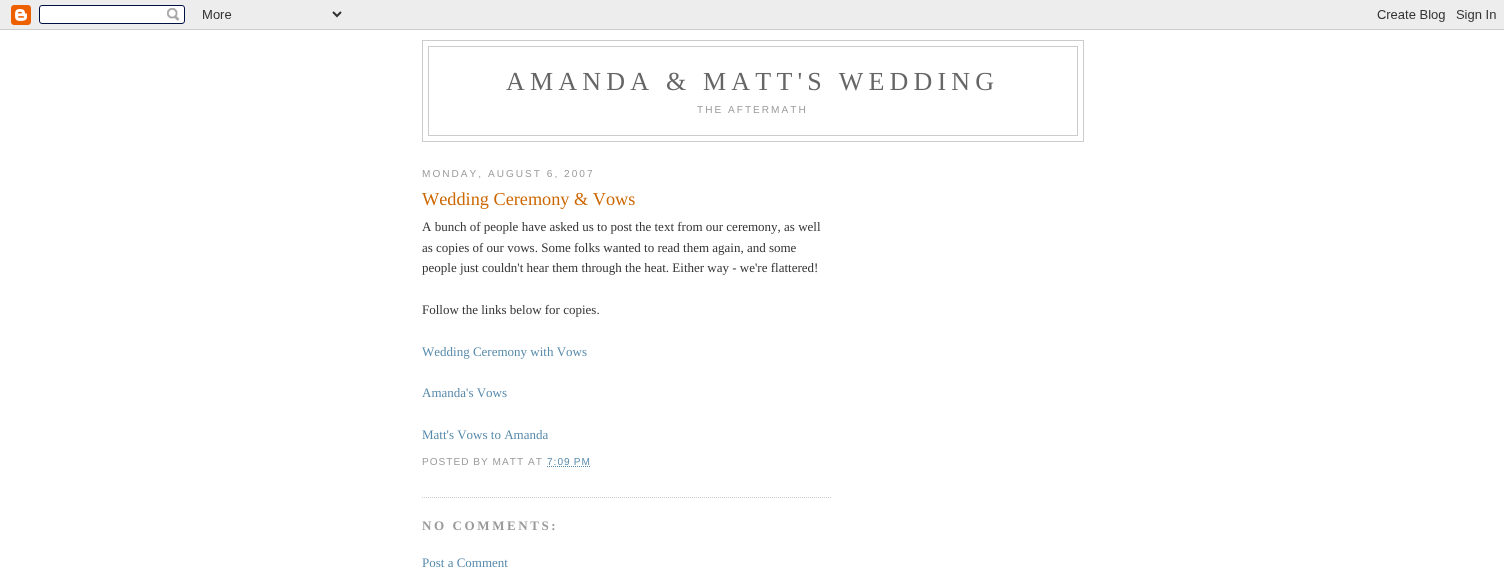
#include <cairo.h>
#include <math.h>
#include <stddef.h>

static cairo_t *c;
static void C(unsigned color){cairo_set_source_rgb(c, (color >> 16) / 255.0, (color >> 8 & 255) / 255.0, (color & 255) / 255.0);}
static void F(const char *family, double size, int italic, int bold){cairo_select_font_face(c, family, italic ? CAIRO_FONT_SLANT_ITALIC : CAIRO_FONT_SLANT_NORMAL,bold ? CAIRO_FONT_WEIGHT_BOLD : CAIRO_FONT_WEIGHT_NORMAL);cairo_set_font_size(c, size);}
static void T(double x, double y, const char *s){cairo_move_to(c, x, y);cairo_show_text(c, s);}
static void L(double x, double y, const char *s, double letter, double word){cairo_move_to(c, x, y);while (*s) {char ch[5] = {0};int n = 0;do ch[n++] = *s++; while ((*s & 0xC0) == 0x80);cairo_show_text(c, ch);cairo_rel_move_to(c, letter + word * (*ch == ' '), 0);}}
static void I(const char *path, double x, double y, double w, double h){cairo_surface_t *image = cairo_image_surface_create_from_png(path);cairo_save(c);cairo_set_source_surface(c, image, x, y);cairo_rectangle(c, x, y, w, h);cairo_fill(c);cairo_restore(c);cairo_surface_destroy(image);}
int main(void) {
cairo_surface_t *surface = cairo_image_surface_create(CAIRO_FORMAT_RGB24, 1504, 567);
c = cairo_create(surface);
cairo_font_options_t *options = cairo_font_options_create();
cairo_font_options_set_hint_metrics(options, CAIRO_HINT_METRICS_OFF);
cairo_font_options_set_hint_style(options, CAIRO_HINT_STYLE_NONE);
cairo_set_font_options(c, options);
cairo_set_miter_limit(c, 4);
C(0xffffff);
cairo_paint(c);
I("1.png",0,0,1504,30);
cairo_rectangle(c,422.5,40.5,661,101);
C(0xcccccc);
cairo_set_line_width(c,1);
cairo_stroke(c);
cairo_rectangle(c,428.5,46.5,649,89);
cairo_stroke(c);
F("Liberation Serif",26,0,0);
C(0x666666);
L(506,90,"AMANDA & MATT'S WEDDING",5.2,0);
F("Liberation Sans",10.1,0,0);
C(0x999999);
L(697,113,"THE AFTERMATH",2,0);
L(422,177,"MONDAY, AUGUST 6, 2007",2,0);
cairo_new_path(c);
cairo_move_to(c,422,497.5);
cairo_line_to(c,832,497.5);
C(0xcccccc);
cairo_set_dash(c,(double[]){1,1},2,0);
cairo_stroke(c);
F("Liberation Serif",18.25,0,0);
C(0xcc6600);
T(422,205,"Wedding Ceremony & Vows");
F("Liberation Serif",13,0,0);
C(0x333333);
T(422,231,"A bunch of people have asked us to post the text from our ceremony, as well");
T(422,252,"as copies of our vows. Some folks wanted to read them again, and some");
T(422,272,"people just couldn't hear them through the heat. Either way - we're flattered!");
T(422,314,"Follow the links below for copies.");
C(0x5588aa);
T(422,356,"Wedding Ceremony with Vows");
T(422,397,"Amanda's Vows");
T(422,439,"Matt's Vows to Amanda");
F("Liberation Sans",10.1,0,0);
C(0x999999);
L(422,465,"POSTED BY MATT AT",1,0);
C(0x5588aa);
L(547,465,"7:09 PM",1,0);
cairo_new_path(c);
cairo_move_to(c,547,466.5);
cairo_line_to(c,591,466.5);
cairo_stroke(c);
F("Liberation Serif",13,0,1);
C(0x999999);
L(422,530,"NO COMMENTS:",2.6,0);
F("Liberation Serif",13,0,0);
C(0x5588aa);
T(422,567,"Post a Comment");
cairo_surface_write_to_png(surface, "o.png");
cairo_font_options_destroy(options);
cairo_destroy(c);
cairo_surface_destroy(surface);
return 0;
}
